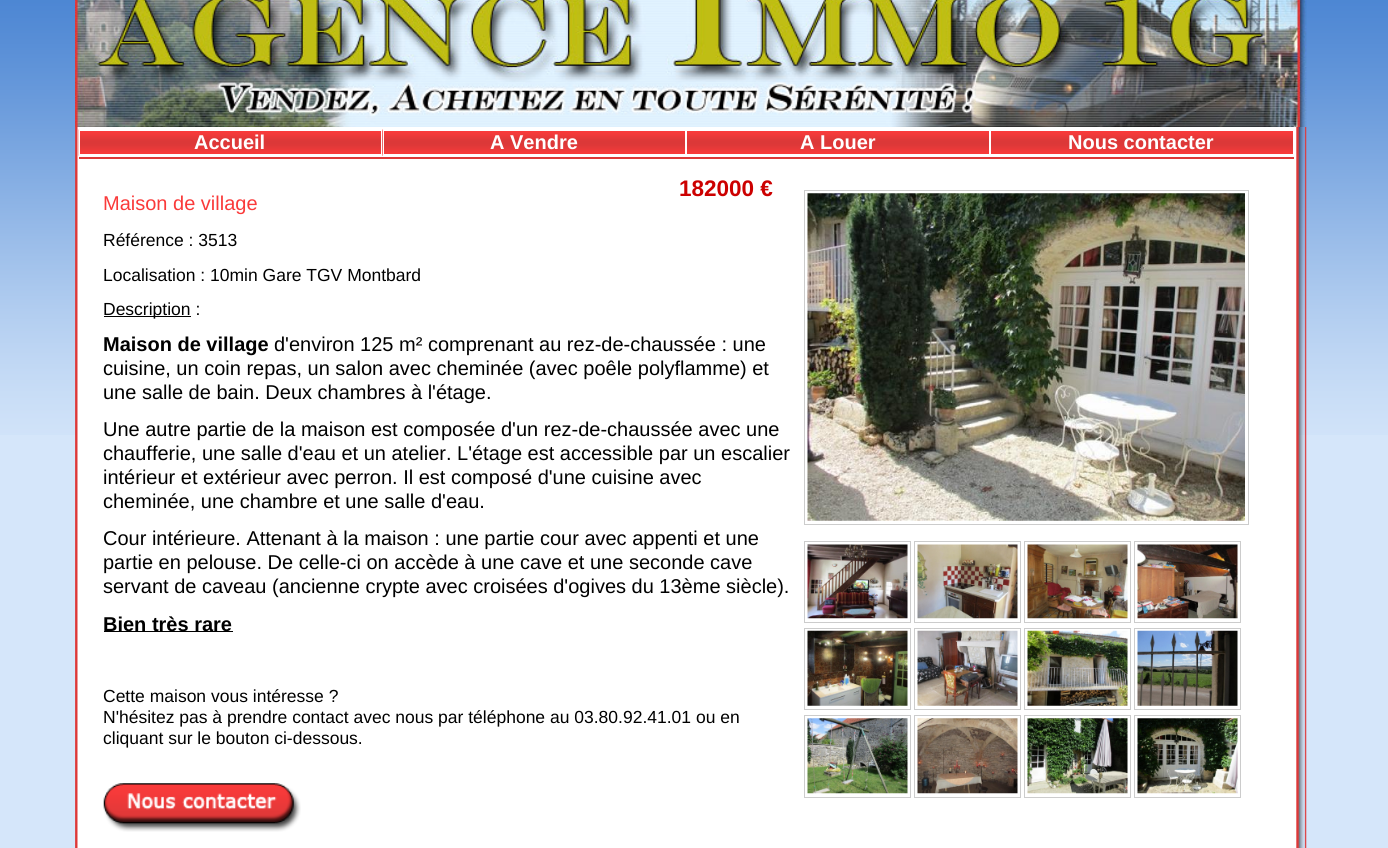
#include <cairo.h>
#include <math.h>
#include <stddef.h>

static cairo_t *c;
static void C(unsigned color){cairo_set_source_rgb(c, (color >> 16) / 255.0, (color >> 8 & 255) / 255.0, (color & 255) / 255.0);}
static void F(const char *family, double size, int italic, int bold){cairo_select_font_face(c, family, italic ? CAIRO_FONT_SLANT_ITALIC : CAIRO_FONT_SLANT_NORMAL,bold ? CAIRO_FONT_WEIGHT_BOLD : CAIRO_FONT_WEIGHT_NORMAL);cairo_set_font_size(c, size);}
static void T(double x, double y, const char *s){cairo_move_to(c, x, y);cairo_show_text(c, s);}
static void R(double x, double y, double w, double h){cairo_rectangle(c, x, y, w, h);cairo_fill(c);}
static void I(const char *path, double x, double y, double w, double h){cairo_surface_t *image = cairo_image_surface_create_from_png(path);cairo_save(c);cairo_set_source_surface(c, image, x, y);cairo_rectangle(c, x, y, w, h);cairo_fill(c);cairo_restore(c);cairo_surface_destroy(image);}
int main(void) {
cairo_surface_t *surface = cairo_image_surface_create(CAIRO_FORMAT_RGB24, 1388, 848);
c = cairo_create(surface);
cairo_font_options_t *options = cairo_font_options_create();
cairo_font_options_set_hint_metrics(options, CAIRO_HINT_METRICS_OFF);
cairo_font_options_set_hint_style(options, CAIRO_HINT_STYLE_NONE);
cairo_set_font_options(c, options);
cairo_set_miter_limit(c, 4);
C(0xd5e6fa);
cairo_paint(c);
I("1.png",0,0,1388,435);
I("2.png",75,0,1232,127);
I("3.png",75,127,1232,721);
C(0xdd3838);
R(79,157,1215,2);
I("4.png",78,129,305,27);
C(0xffffff);
R(79,129,304,2);
R(381,128,1,28);
R(79,154,304,2);
R(79,128,1,28);
F("Liberation Sans",20,0,1);
T(194,149,"Accueil");
I("5.png",382,129,303,27);
R(383,129,303,2);
R(383,154,303,2);
R(383,128,1,28);
T(490,149,"A Vendre");
I("6.png",687,131,302,23);
T(800,149,"A Louer");
I("6.png",991,131,302,23);
T(1068,149,"Nous contacter");
F("Liberation Sans",22.5,0,1);
C(0xcc0000);
T(679,196,"182000 €");
F("Liberation Sans",20,0,0);
C(0xfa3a3a);
T(103,210,"Maison de village");
F("Liberation Sans",17.5,0,0);
C(0x000000);
T(103,246,"Référence : 3513");
T(103,281,"Localisation : 10min Gare TGV Montbard");
R(104,316,87,1);
T(103,315,"Description :");
F("Liberation Sans",20,0,1);
T(103,351,"Maison de village");
F("Liberation Sans",20,0,0);
T(274,351,"d'environ 125 m² comprenant au rez-de-chaussée : une");
T(103,375,"cuisine, un coin repas, un salon avec cheminée (avec poêle polyflamme) et");
T(103,399,"une salle de bain. Deux chambres à l'étage.");
T(103,436,"Une autre partie de la maison est composée d'un rez-de-chaussée avec une");
T(103,460,"chaufferie, une salle d'eau et un atelier. L'étage est accessible par un escalier");
T(103,484,"intérieur et extérieur avec perron. Il est composé d'une cuisine avec");
T(103,508,"cheminée, une chambre et une salle d'eau.");
T(103,545,"Cour intérieure. Attenant à la maison : une partie cour avec appenti et une");
T(103,569,"partie en pelouse. De celle-ci on accède à une cave et une seconde cave");
T(103,593,"servant de caveau (ancienne crypte avec croisées d'ogives du 13ème siècle).");
R(104,631,129,1);
F("Liberation Sans",20,0,1);
T(103,631,"Bien très rare");
F("Liberation Sans",17.5,0,0);
T(103,702,"Cette maison vous intéresse ?");
T(103,723,"N'hésitez pas à prendre contact avec nous par téléphone au 03.80.92.41.01 ou en");
T(103,744,"cliquant sur le bouton ci-dessous.");
I("7.png",103,783,198,49);
cairo_rectangle(c,804.5,190.5,444,334);
C(0xcccccc);
cairo_set_line_width(c,1);
cairo_stroke(c);
I("8.png",807,193,438,328);
cairo_rectangle(c,804.5,541.5,106,81);
cairo_stroke(c);
cairo_rectangle(c,914.5,541.5,106,81);
cairo_stroke(c);
cairo_rectangle(c,1024.5,541.5,106,81);
cairo_stroke(c);
cairo_rectangle(c,1134.5,541.5,106,81);
cairo_stroke(c);
I("9.png",807,544,101,75);
I("10.png",917,544,101,75);
I("11.png",1027,544,101,75);
I("12.png",1137,544,101,75);
cairo_rectangle(c,804.5,628.5,106,81);
cairo_stroke(c);
cairo_rectangle(c,914.5,628.5,106,81);
cairo_stroke(c);
cairo_rectangle(c,1024.5,628.5,106,81);
cairo_stroke(c);
cairo_rectangle(c,1134.5,628.5,106,81);
cairo_stroke(c);
I("13.png",807,630,101,76);
I("14.png",917,630,101,76);
I("15.png",1027,630,101,76);
I("16.png",1137,630,101,76);
cairo_rectangle(c,804.5,715.5,106,82);
cairo_stroke(c);
cairo_rectangle(c,914.5,715.5,106,82);
cairo_stroke(c);
cairo_rectangle(c,1024.5,715.5,106,82);
cairo_stroke(c);
cairo_rectangle(c,1134.5,715.5,106,82);
cairo_stroke(c);
I("17.png",807,718,101,76);
I("18.png",917,718,101,76);
I("19.png",1027,718,101,76);
I("20.png",1137,718,101,76);
cairo_surface_write_to_png(surface, "o.png");
cairo_font_options_destroy(options);
cairo_destroy(c);
cairo_surface_destroy(surface);
return 0;
}
